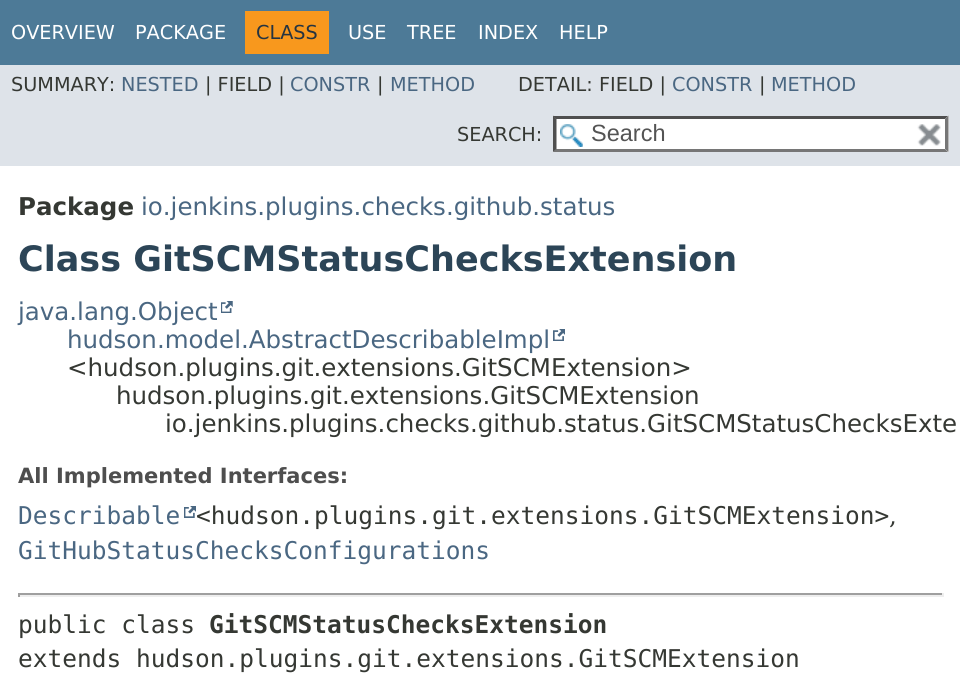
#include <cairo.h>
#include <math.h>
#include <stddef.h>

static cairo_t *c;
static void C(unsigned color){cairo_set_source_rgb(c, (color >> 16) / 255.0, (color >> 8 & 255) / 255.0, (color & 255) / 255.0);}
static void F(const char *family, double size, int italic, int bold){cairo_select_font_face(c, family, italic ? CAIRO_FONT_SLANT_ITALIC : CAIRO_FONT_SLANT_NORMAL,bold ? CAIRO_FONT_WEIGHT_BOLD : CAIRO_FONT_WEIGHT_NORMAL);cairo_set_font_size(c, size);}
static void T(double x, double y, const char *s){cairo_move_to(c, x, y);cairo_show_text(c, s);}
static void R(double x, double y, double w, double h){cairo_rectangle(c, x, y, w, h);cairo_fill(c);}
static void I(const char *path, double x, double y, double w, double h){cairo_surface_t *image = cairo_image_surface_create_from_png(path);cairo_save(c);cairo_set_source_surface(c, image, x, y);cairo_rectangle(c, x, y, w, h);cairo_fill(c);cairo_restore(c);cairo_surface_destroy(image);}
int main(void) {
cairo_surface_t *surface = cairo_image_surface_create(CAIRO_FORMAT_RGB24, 960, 697);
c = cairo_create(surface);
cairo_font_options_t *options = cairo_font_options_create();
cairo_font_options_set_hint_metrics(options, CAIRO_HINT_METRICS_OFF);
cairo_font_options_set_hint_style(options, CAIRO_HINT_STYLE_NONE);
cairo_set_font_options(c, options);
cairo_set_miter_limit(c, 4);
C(0xffffff);
cairo_paint(c);
C(0x4d7a97);
R(0,0,960,65);
F("DejaVu Sans",19.25,0,0);
C(0xffffff);
T(11,39,"OVERVIEW");
T(135,39,"PACKAGE");
C(0xf8981d);
R(245,11,84,43);
C(0x253441);
T(256,39,"CLASS");
C(0xffffff);
T(348,39,"USE");
T(407,39,"TREE");
T(478,39,"INDEX");
T(559,39,"HELP");
C(0xdee3e9);
R(0,65,960,101);
C(0x353833);
T(11,91,"SUMMARY:");
C(0x4a6782);
T(121,91,"NESTED");
C(0x353833);
T(205,91,"| FIELD |");
C(0x4a6782);
T(290,91,"CONSTR");
C(0x353833);
T(377,91,"|");
C(0x4a6782);
T(390,91,"METHOD");
C(0x353833);
T(518,91,"DETAIL: FIELD |");
C(0x4a6782);
T(672,91,"CONSTR");
C(0x353833);
T(759,91,"|");
C(0x4a6782);
T(771,91,"METHOD");
C(0x353833);
T(457,141,"SEARCH:");
C(0xffffff);
R(553,116,396,36);
I("1.png",560,124,23,23);
C(0x4f4f4f);
cairo_new_path(c);
cairo_move_to(c,553,116);
cairo_line_to(c,948,116);
cairo_line_to(c,945,119);
cairo_line_to(c,556,119);
cairo_close_path(c);
cairo_fill(c);
C(0x767676);
cairo_new_path(c);
cairo_move_to(c,948.5,115.5);
cairo_line_to(c,948.5,152);
cairo_line_to(c,945,149);
cairo_line_to(c,945,119);
cairo_close_path(c);
cairo_fill(c);
cairo_new_path(c);
cairo_move_to(c,948,152);
cairo_line_to(c,553,152);
cairo_line_to(c,556,149);
cairo_line_to(c,945,149);
cairo_close_path(c);
cairo_fill(c);
C(0x4f4f4f);
cairo_new_path(c);
cairo_move_to(c,553,152);
cairo_line_to(c,553,115.5);
cairo_line_to(c,556.5,119);
cairo_line_to(c,556.5,149);
cairo_close_path(c);
cairo_fill(c);
F("Liberation Sans",23.5,0,0);
C(0x545454);
T(591,141,"Search");
I("2.png",917,124,24,22);
F("DejaVu Sans",24.5,0,1);
C(0x353833);
T(18,215,"Package");
F("DejaVu Sans",24.5,0,0);
C(0x4a6782);
T(141,215,"io.jenkins.plugins.checks.github.status");
F("DejaVu Sans",35,0,1);
C(0x2c4557);
T(18,271,"Class GitSCMStatusChecksExtension");
F("DejaVu Sans",24.5,0,0);
C(0x4a6782);
T(18,320,"java.lang.Object");
I("3.png",221,301,12,12);
T(67,348,"hudson.model.AbstractDescribableImpl");
I("4.png",553,329,12,12);
C(0x353833);
T(67,376,"<hudson.plugins.git.extensions.GitSCMExtension>");
T(116,404,"hudson.plugins.git.extensions.GitSCMExtension");
T(165,432,"io.jenkins.plugins.checks.github.status.GitSCMStatusChecksExte");
F("DejaVu Sans",21,0,1);
C(0x4e4e4e);
T(18,483,"All Implemented Interfaces:");
F("DejaVu Sans Mono",24.5,0,0);
C(0x4a6782);
T(18,524,"Describable");
I("5.png",184,506,12,12);
C(0x353833);
T(196,524,"<hudson.plugins.git.extensions.GitSCMExtension>");
F("DejaVu Serif",24.5,0,0);
T(889,524,",");
F("DejaVu Sans Mono",24.5,0,0);
C(0x4a6782);
T(18,559,"GitHubStatusChecksConfigurations");
C(0x9f9f9f);
R(18,593,925,2);
C(0xeeeeee);
R(942,593,2,4);
R(18,595,925,2);
C(0x9f9f9f);
R(18,593,2,4);
C(0x353833);
T(18,633,"public class");
F("DejaVu Sans Mono",24.5,0,1);
T(209,633,"GitSCMStatusChecksExtension");
F("DejaVu Sans Mono",24.5,0,0);
T(18,667,"extends hudson.plugins.git.extensions.GitSCMExtension");
cairo_surface_write_to_png(surface, "o.png");
cairo_font_options_destroy(options);
cairo_destroy(c);
cairo_surface_destroy(surface);
return 0;
}
